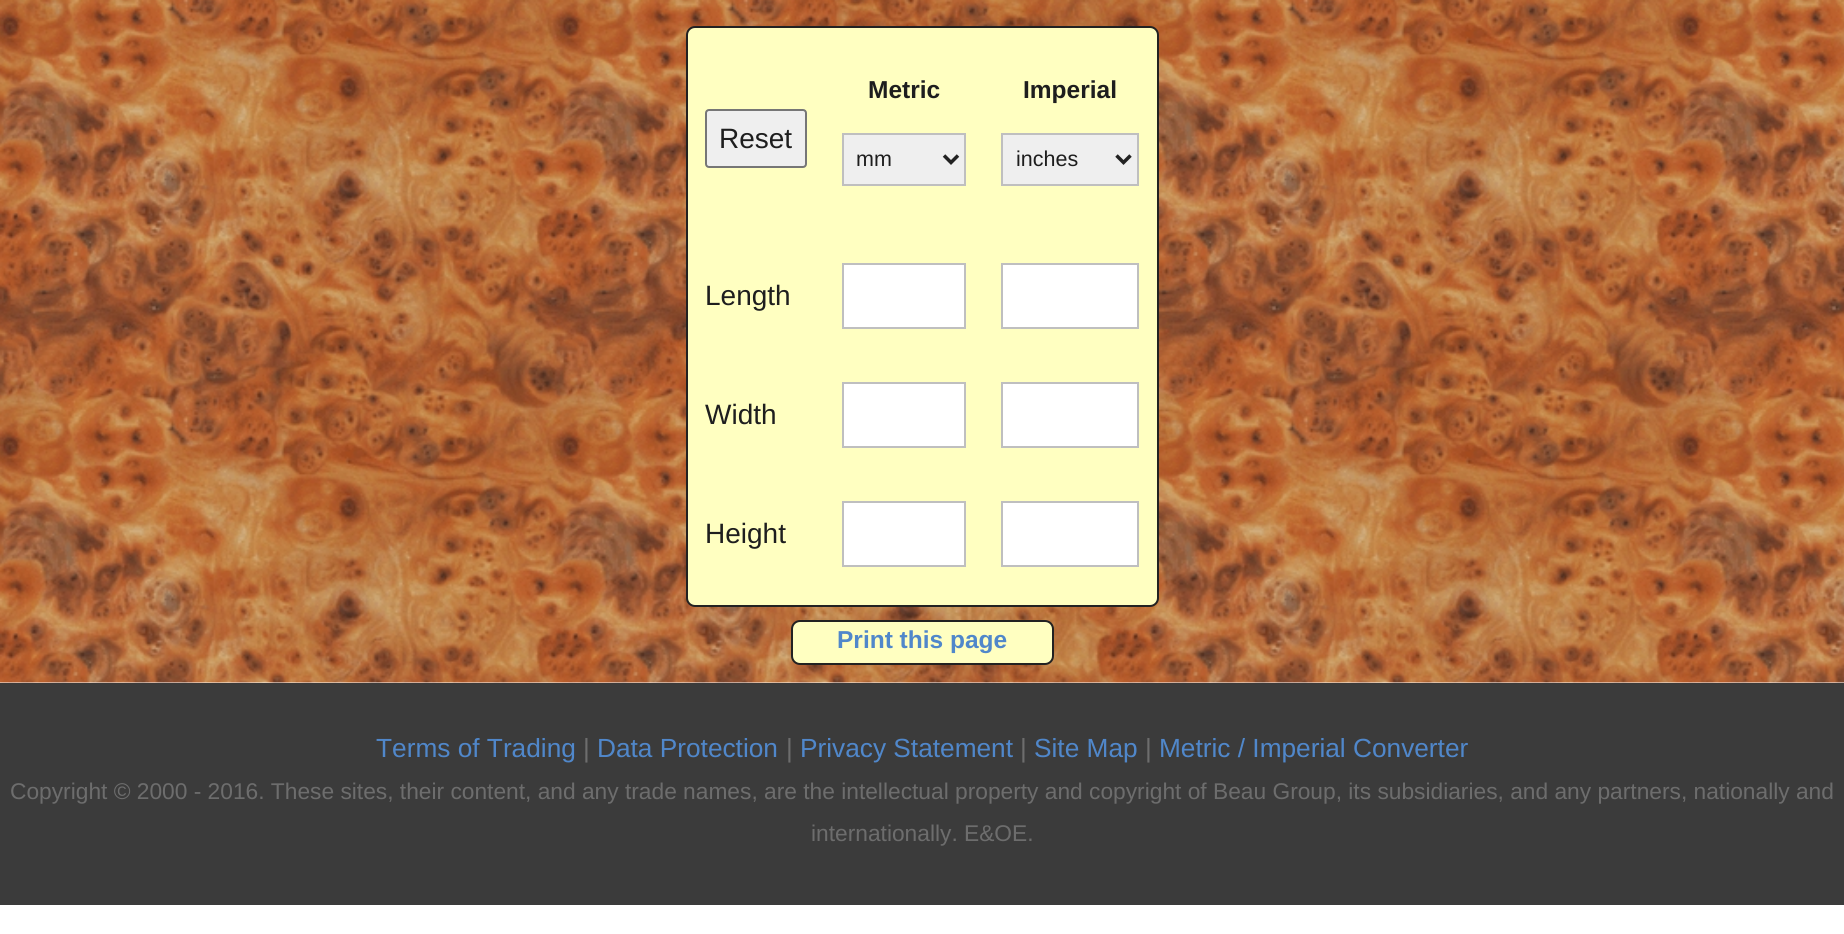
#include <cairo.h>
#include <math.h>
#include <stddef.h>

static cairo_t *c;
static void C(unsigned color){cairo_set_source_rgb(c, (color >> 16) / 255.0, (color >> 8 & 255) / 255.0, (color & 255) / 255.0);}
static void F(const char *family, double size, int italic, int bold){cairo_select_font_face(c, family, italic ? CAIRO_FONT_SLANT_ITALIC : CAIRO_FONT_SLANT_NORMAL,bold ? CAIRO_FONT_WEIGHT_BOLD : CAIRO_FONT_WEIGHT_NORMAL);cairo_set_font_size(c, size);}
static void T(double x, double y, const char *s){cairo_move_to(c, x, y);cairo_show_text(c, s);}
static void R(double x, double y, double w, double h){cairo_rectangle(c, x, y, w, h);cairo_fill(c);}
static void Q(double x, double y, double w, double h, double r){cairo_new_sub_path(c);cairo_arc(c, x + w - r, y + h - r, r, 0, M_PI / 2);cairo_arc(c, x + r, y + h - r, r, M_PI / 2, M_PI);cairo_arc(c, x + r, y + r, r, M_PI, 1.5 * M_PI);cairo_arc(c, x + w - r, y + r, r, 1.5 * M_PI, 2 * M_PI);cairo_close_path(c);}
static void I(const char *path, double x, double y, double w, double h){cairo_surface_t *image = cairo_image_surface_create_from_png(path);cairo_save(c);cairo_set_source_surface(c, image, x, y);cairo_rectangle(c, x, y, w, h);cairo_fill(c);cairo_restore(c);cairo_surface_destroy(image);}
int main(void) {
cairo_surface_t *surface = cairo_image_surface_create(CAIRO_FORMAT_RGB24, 1844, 934);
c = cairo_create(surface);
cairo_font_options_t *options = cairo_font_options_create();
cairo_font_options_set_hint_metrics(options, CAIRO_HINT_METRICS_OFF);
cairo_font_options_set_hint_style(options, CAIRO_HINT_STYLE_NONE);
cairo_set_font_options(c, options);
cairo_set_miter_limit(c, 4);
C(0xffffff);
cairo_paint(c);
I("1.png",0,0,1844,683);
C(0xffffc1);
Q(687,27,471,579,8);
cairo_fill_preserve(c);
C(0x222222);
cairo_stroke(c);
C(0xefefef);
Q(706,110,100,57,3);
cairo_fill_preserve(c);
C(0x767676);
cairo_stroke(c);
F("Liberation Sans",28,0,0);
C(0x1e1e1e);
T(719,148,"Reset");
F("Liberation Sans",24.5,0,1);
T(868,98,"Metric");
C(0xefefef);
cairo_rectangle(c,843,134,122,51);
cairo_fill_preserve(c);
C(0xbfbfbf);
cairo_stroke(c);
cairo_new_path(c);
cairo_move_to(c,944,155.5);
cairo_line_to(c,951,162.5);
cairo_line_to(c,958,155.5);
C(0x222222);
cairo_set_line_width(c,3.5);
cairo_stroke(c);
F("Liberation Sans",21.5,0,0);
C(0x1e1e1e);
T(856,166,"mm");
F("Liberation Sans",24.5,0,1);
T(1023,98,"Imperial");
C(0xefefef);
cairo_rectangle(c,1002,134,136,51);
cairo_fill_preserve(c);
C(0xbfbfbf);
cairo_set_line_width(c,2);
cairo_stroke(c);
cairo_new_path(c);
cairo_move_to(c,1116.5,155.5);
cairo_line_to(c,1123.5,162.5);
cairo_line_to(c,1130.5,155.5);
C(0x222222);
cairo_set_line_width(c,3.5);
cairo_stroke(c);
F("Liberation Sans",21.5,0,0);
C(0x1e1e1e);
T(1016,166,"inches");
F("Liberation Sans",28,0,0);
T(705,305,"Length");
C(0xffffff);
cairo_rectangle(c,843,264,122,64);
cairo_fill_preserve(c);
C(0xbfbfbf);
cairo_set_line_width(c,2);
cairo_stroke(c);
C(0xffffff);
cairo_rectangle(c,1002,264,136,64);
cairo_fill_preserve(c);
C(0xbfbfbf);
cairo_stroke(c);
C(0x1e1e1e);
T(705,424,"Width");
C(0xffffff);
cairo_rectangle(c,843,383,122,64);
cairo_fill_preserve(c);
C(0xbfbfbf);
cairo_stroke(c);
C(0xffffff);
cairo_rectangle(c,1002,383,136,64);
cairo_fill_preserve(c);
C(0xbfbfbf);
cairo_stroke(c);
C(0x1e1e1e);
T(705,543,"Height");
C(0xffffff);
cairo_rectangle(c,843,502,122,64);
cairo_fill_preserve(c);
C(0xbfbfbf);
cairo_stroke(c);
C(0xffffff);
cairo_rectangle(c,1002,502,136,64);
cairo_fill_preserve(c);
C(0xbfbfbf);
cairo_stroke(c);
C(0xffffc1);
Q(792,621,261,43,8);
cairo_fill_preserve(c);
C(0x222222);
cairo_stroke(c);
F("Liberation Sans",24.5,0,1);
C(0x5087ca);
T(837,648,"Print this page");
C(0x3b3b3b);
R(0,683,1844,222);
F("Liberation Sans",26.25,0,0);
C(0x5087ca);
T(376,757,"Terms of Trading");
C(0x6d6d6d);
T(583,757,"|");
C(0x5087ca);
T(597,757,"Data Protection");
C(0x6d6d6d);
T(786,757,"|");
C(0x5087ca);
T(800,757,"Privacy Statement");
C(0x6d6d6d);
T(1020,757,"|");
C(0x5087ca);
T(1034,757,"Site Map");
C(0x6d6d6d);
T(1145,757,"|");
C(0x5087ca);
T(1159,757,"Metric / Imperial Converter");
F("Liberation Sans",22.75,0,0);
C(0x6d6d6d);
T(10,799,"Copyright © 2000 - 2016. These sites, their content, and any trade names, are the intellectual property and copyright of Beau Group, its subsidiaries, and any partners, nationally and");
T(811,841,"internationally. E&OE.");
cairo_surface_write_to_png(surface, "o.png");
cairo_font_options_destroy(options);
cairo_destroy(c);
cairo_surface_destroy(surface);
return 0;
}
